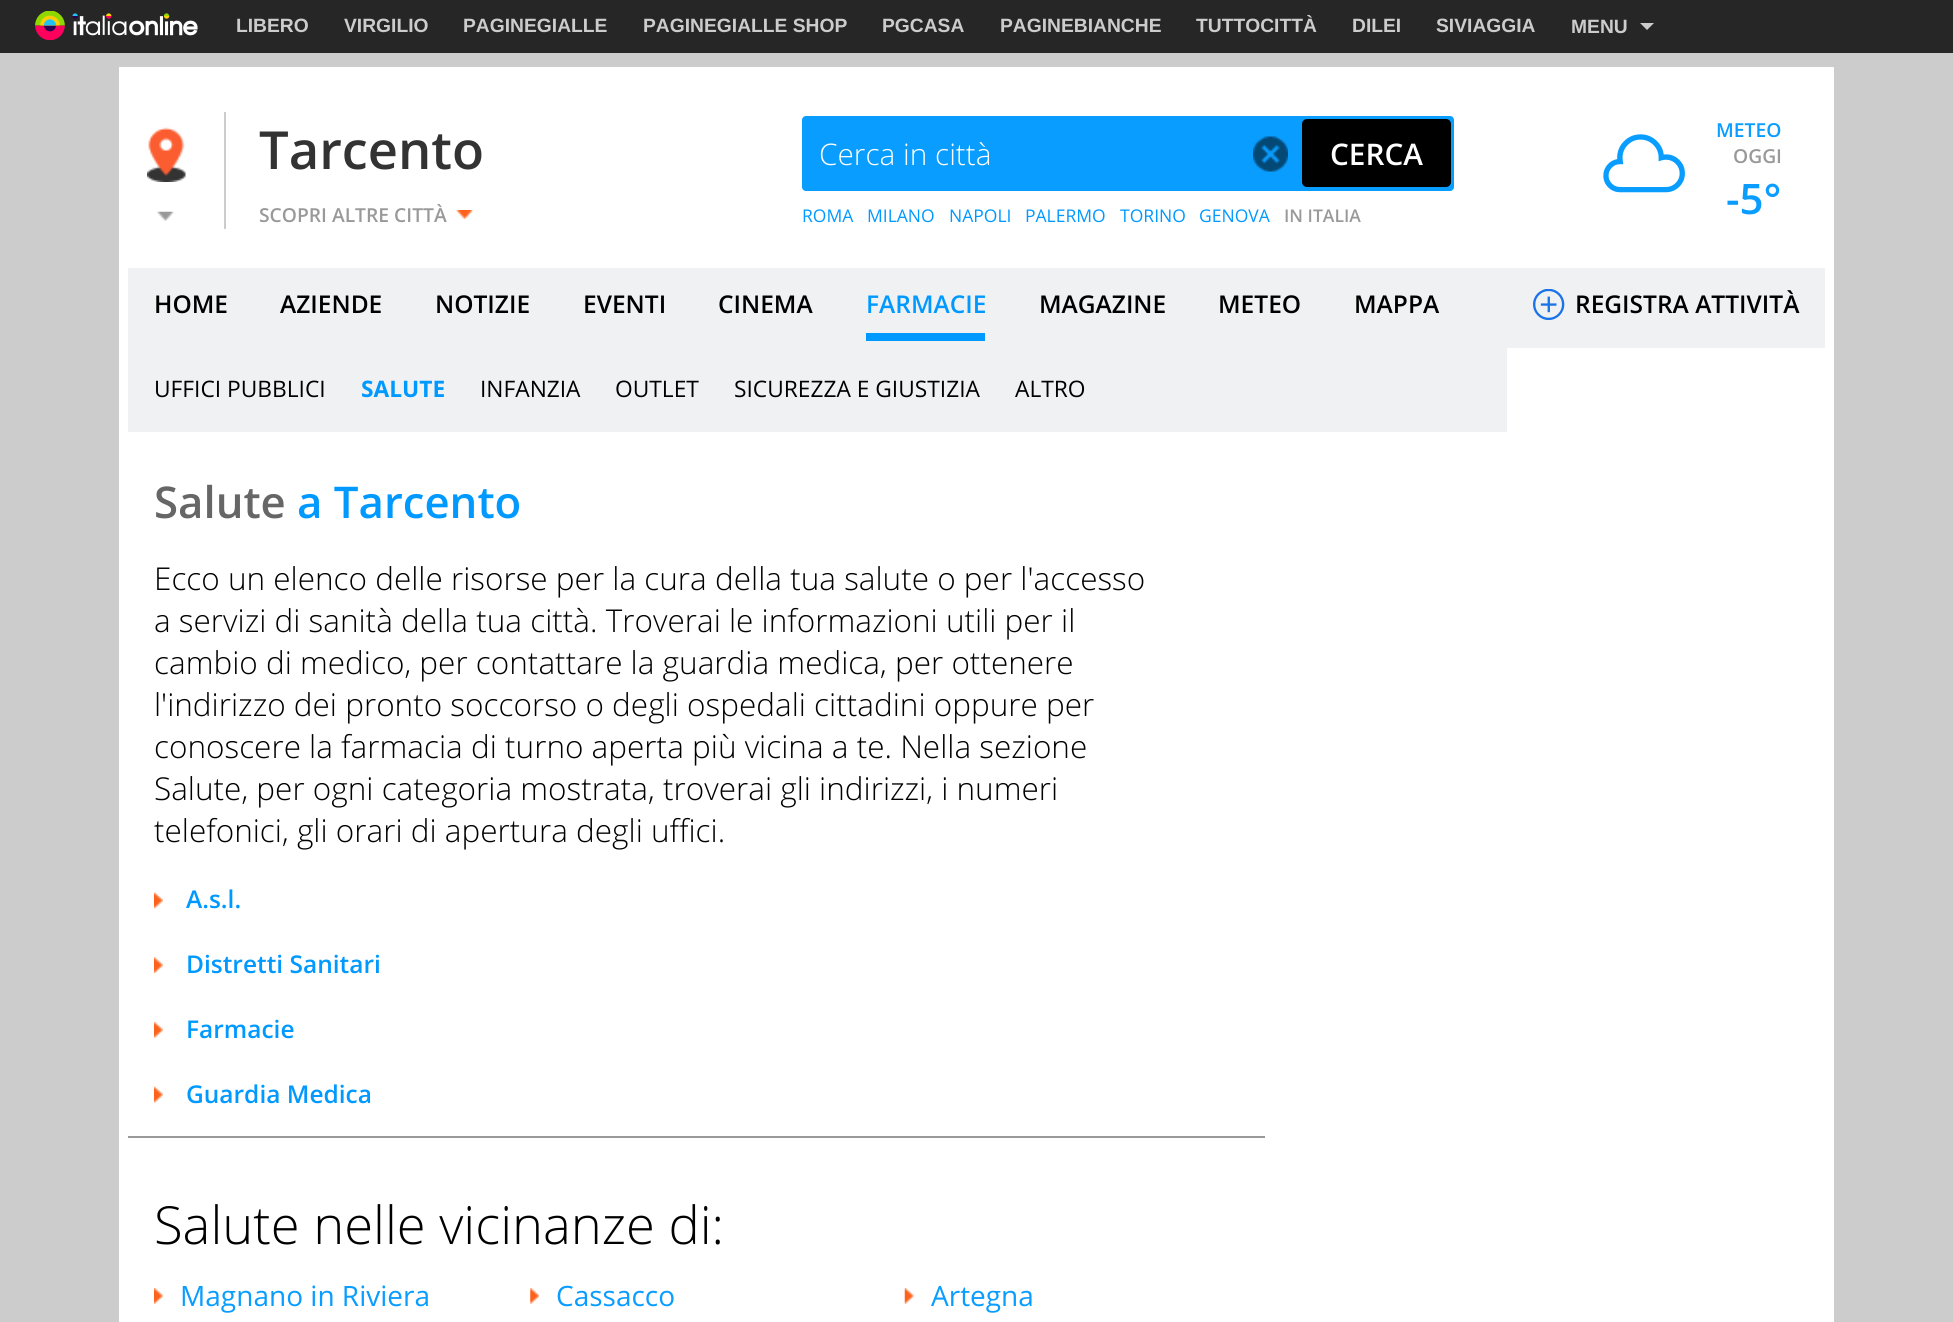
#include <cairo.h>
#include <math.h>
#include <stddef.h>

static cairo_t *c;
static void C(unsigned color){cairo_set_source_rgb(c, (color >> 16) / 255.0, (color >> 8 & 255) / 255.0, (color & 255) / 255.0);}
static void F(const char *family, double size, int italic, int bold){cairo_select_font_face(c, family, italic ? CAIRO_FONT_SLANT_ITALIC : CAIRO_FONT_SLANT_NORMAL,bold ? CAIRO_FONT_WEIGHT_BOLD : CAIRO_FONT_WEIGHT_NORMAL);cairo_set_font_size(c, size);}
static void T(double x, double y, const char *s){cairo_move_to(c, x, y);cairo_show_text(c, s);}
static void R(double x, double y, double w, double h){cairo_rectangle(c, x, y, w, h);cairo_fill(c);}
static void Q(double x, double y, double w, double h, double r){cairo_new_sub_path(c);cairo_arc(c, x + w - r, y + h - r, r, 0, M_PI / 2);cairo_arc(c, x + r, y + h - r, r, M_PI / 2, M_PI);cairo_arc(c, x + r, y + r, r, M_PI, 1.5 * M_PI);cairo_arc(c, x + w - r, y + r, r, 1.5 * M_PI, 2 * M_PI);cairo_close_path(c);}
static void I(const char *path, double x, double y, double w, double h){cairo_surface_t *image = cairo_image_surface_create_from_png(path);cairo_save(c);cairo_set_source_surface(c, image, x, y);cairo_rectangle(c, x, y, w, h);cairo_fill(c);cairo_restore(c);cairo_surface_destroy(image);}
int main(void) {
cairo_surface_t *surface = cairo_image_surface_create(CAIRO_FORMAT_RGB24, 1953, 1322);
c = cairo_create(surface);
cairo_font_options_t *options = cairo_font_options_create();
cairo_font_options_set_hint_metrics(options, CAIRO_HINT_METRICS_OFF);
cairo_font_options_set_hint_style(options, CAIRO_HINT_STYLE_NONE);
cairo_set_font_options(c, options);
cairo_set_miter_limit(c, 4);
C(0xcccccc);
cairo_paint(c);
C(0x262626);
R(0,0,1953,53);
I("1.png",35,11,163,29);
F("Liberation Sans",19.25,0,1);
C(0xcccccc);
T(236,32,"LIBERO");
T(344,32,"VIRGILIO");
T(463,32,"PAGINEGIALLE");
T(643,32,"PAGINEGIALLE SHOP");
T(882,32,"PGCASA");
T(1000,32,"PAGINEBIANCHE");
T(1196,32,"TUTTOCITTÀ");
T(1352,32,"DILEI");
T(1436,32,"SIVIAGGIA");
T(1571,33,"MENU");
cairo_new_path(c);
cairo_move_to(c,1640,23);
cairo_line_to(c,1654,23);
cairo_line_to(c,1647,30);
cairo_close_path(c);
cairo_fill(c);
C(0xffffff);
R(119,67,1715,1255);
C(0xcccccc);
R(224,112,2,117);
I("2.png",147,127,39,55);
I("3.png",157,211,17,10);
F("Open Sans SemiBold",52.5,0,0);
C(0x333333);
T(259,169,"Tarcento");
F("Open Sans SemiBold",19.25,0,0);
C(0x999999);
T(259,222,"SCOPRI ALTRE CITTÀ");
I("4.png",456,210,17,9);
C(0x099dff);
Q(802,116,652,75,4);
cairo_fill(c);
F("Open Sans Light",29.75,0,0);
C(0xffffff);
T(819,165,"Cerca in città");
I("5.png",1253,136,35,36);
C(0x000000);
Q(1302,119,149,68,5);
cairo_fill(c);
F("Open Sans SemiBold",29.75,0,0);
C(0xffffff);
T(1330,165,"CERCA");
F("Open Sans",17.5,0,0);
C(0x0099ff);
T(802,222,"ROMA");
T(867,222,"MILANO");
T(949,222,"NAPOLI");
T(1025,222,"PALERMO");
T(1120,222,"TORINO");
T(1199,222,"GENOVA");
F("Open Sans SemiBold",17.5,0,0);
C(0x999999);
T(1284,222,"IN ITALIA");
F("Open Sans SemiBold",19.25,0,0);
C(0x099dff);
T(1716,137,"METEO");
I("6.png",1603,134,82,59);
C(0x999999);
T(1733,163,"OGGI");
F("Open Sans SemiBold",42,0,0);
C(0x099dff);
T(1726,214,"-5°");
C(0xf0f1f3);
R(128,268,1697,80);
F("Open Sans SemiBold",24.5,0,0);
C(0x000000);
T(154,313,"HOME");
T(280,313,"AZIENDE");
T(435,313,"NOTIZIE");
T(583,313,"EVENTI");
T(718,313,"CINEMA");
C(0x0099ff);
T(866,313,"FARMACIE");
R(866,333,119,8);
C(0x000000);
T(1039,313,"MAGAZINE");
T(1218,313,"METEO");
T(1354,313,"MAPPA");
I("7.png",1533,289,32,31);
T(1575,313,"REGISTRA ATTIVITÀ");
C(0xf0f1f3);
R(128,348,1379,84);
F("Open Sans",22.75,0,0);
C(0x000000);
T(154,397,"UFFICI PUBBLICI");
F("Open Sans",22.75,0,1);
C(0x0099ff);
T(361,397,"SALUTE");
F("Open Sans",22.75,0,0);
C(0x000000);
T(480,397,"INFANZIA");
T(615,397,"OUTLET");
T(734,397,"SICUREZZA E GIUSTIZIA");
T(1015,397,"ALTRO");
F("Open Sans SemiBold",43.75,0,0);
C(0x666666);
T(154,518,"Salute");
C(0x0099ff);
T(297,518,"a Tarcento");
F("Open Sans Light",31.5,0,0);
C(0x000000);
T(154,590,"Ecco un elenco delle risorse per la cura della tua salute o per l'accesso");
T(154,632,"a servizi di sanità della tua città. Troverai le informazioni utili per il");
T(154,674,"cambio di medico, per contattare la guardia medica, per ottenere");
T(154,716,"l'indirizzo dei pronto soccorso o degli ospedali cittadini oppure per");
T(154,758,"conoscere la farmacia di turno aperta più vicina a te. Nella sezione");
T(154,800,"Salute, per ogni categoria mostrata, troverai gli indirizzi, i numeri");
T(154,842,"telefonici, gli orari di apertura degli uffici.");
I("8.png",154,892,9,17);
F("Open Sans SemiBold",24.5,0,0);
C(0x0099ff);
T(186,908,"A.s.l.");
I("9.png",154,957,9,16);
T(186,973,"Distretti Sanitari");
I("10.png",154,1022,9,16);
T(186,1038,"Farmacie");
I("11.png",154,1086,9,17);
T(186,1103,"Guardia Medica");
C(0x999999);
R(128,1136,1137,2);
F("Open Sans Light",52.5,0,0);
C(0x000000);
T(154,1244,"Salute nelle vicinanze di:");
I("10.png",154,1288,9,16);
F("Open Sans",28,0,0);
C(0x099dff);
T(180,1306,"Magnano in Riviera");
I("12.png",530,1288,9,16);
T(556,1306,"Cassacco");
I("13.png",904,1288,10,16);
T(931,1306,"Artegna");
cairo_surface_write_to_png(surface, "o.png");
cairo_font_options_destroy(options);
cairo_destroy(c);
cairo_surface_destroy(surface);
return 0;
}
